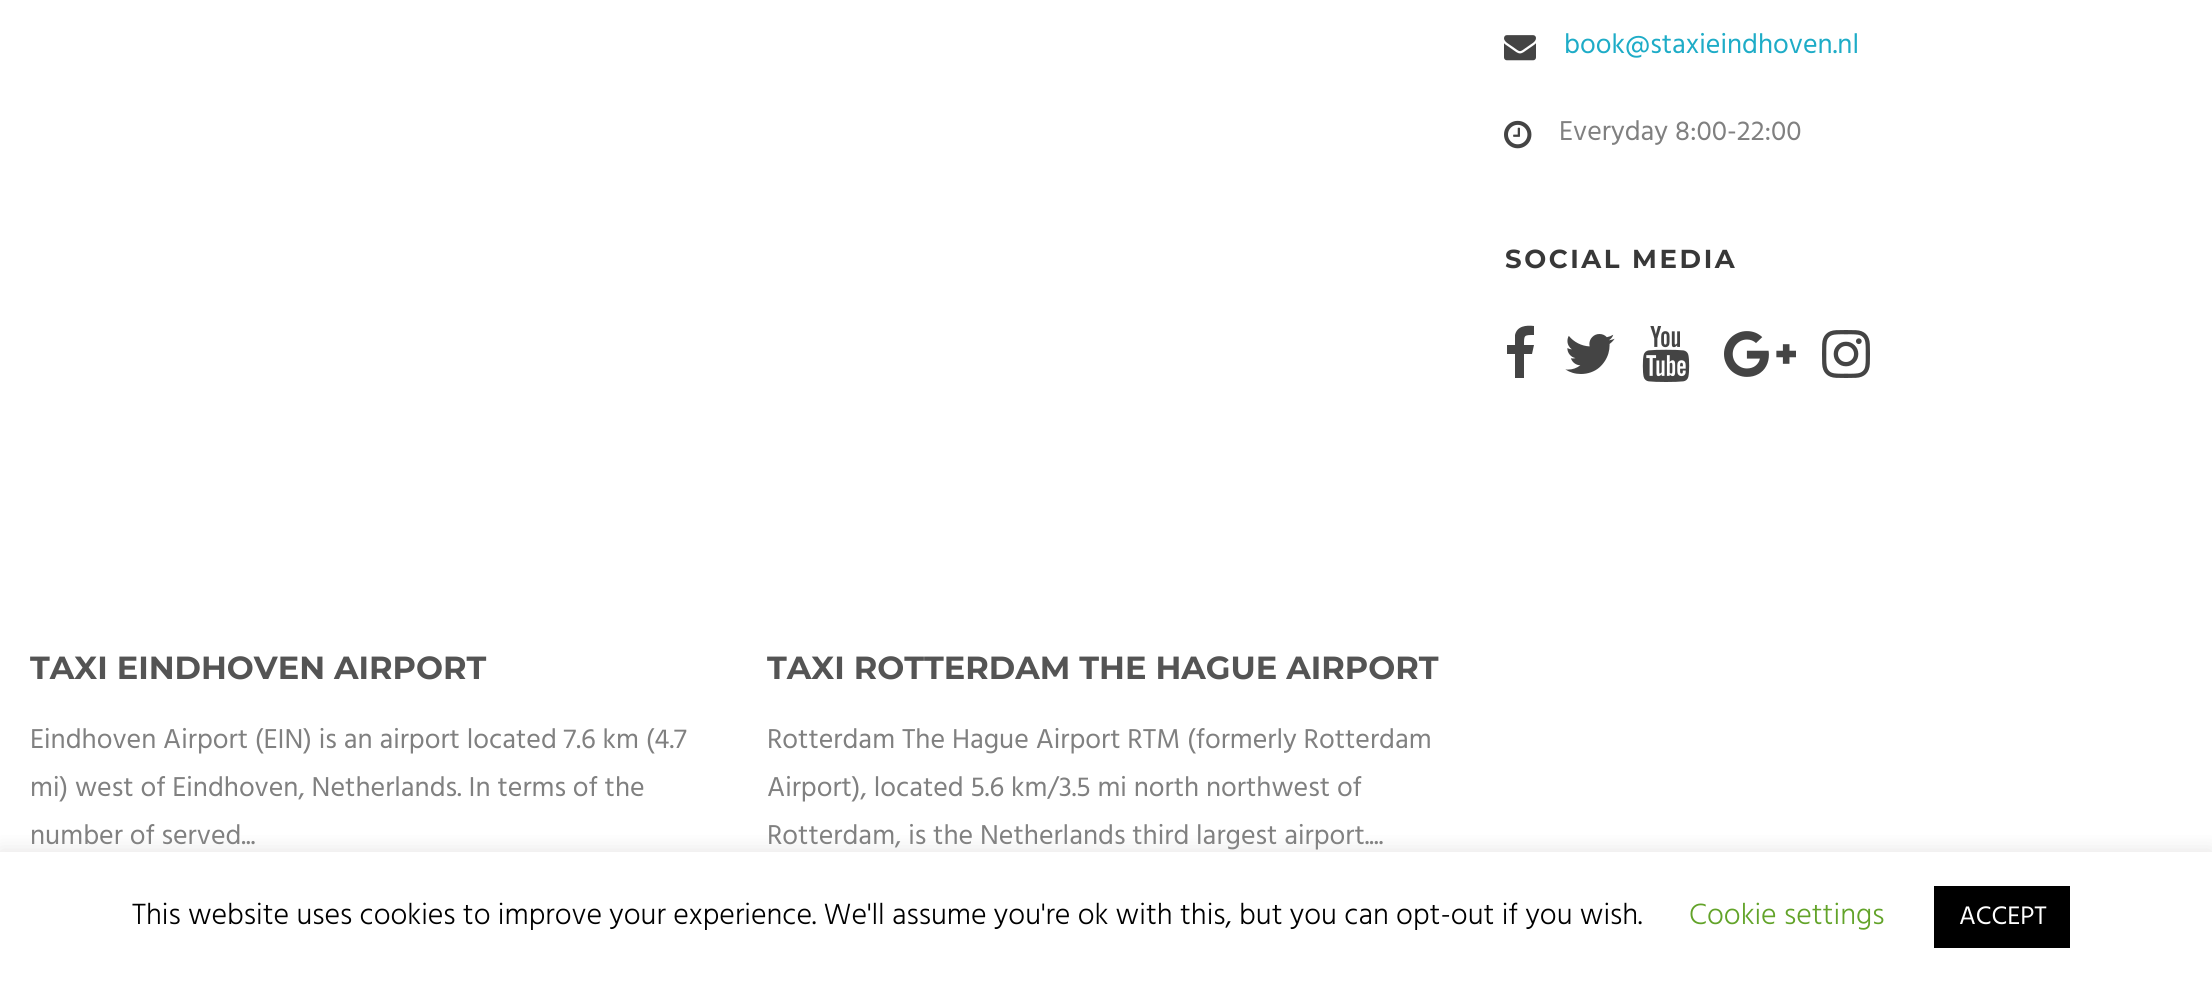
#include <cairo.h>
#include <math.h>
#include <stddef.h>

static cairo_t *c;
static void C(unsigned color){cairo_set_source_rgb(c, (color >> 16) / 255.0, (color >> 8 & 255) / 255.0, (color & 255) / 255.0);}
static void F(const char *family, double size, int italic, int bold){cairo_select_font_face(c, family, italic ? CAIRO_FONT_SLANT_ITALIC : CAIRO_FONT_SLANT_NORMAL,bold ? CAIRO_FONT_WEIGHT_BOLD : CAIRO_FONT_WEIGHT_NORMAL);cairo_set_font_size(c, size);}
static void T(double x, double y, const char *s){cairo_move_to(c, x, y);cairo_show_text(c, s);}
static void L(double x, double y, const char *s, double letter, double word){cairo_move_to(c, x, y);while (*s) {char ch[5] = {0};int n = 0;do ch[n++] = *s++; while ((*s & 0xC0) == 0x80);cairo_show_text(c, ch);cairo_rel_move_to(c, letter + word * (*ch == ' '), 0);}}
static void R(double x, double y, double w, double h){cairo_rectangle(c, x, y, w, h);cairo_fill(c);}
static void Q(double x, double y, double w, double h, double r){cairo_new_sub_path(c);cairo_arc(c, x + w - r, y + h - r, r, 0, M_PI / 2);cairo_arc(c, x + r, y + h - r, r, M_PI / 2, M_PI);cairo_arc(c, x + r, y + r, r, M_PI, 1.5 * M_PI);cairo_arc(c, x + w - r, y + r, r, 1.5 * M_PI, 2 * M_PI);cairo_close_path(c);}
static void S(double x, double y, double w, double h, double r, double blur, double alpha){cairo_push_group_with_content(c, CAIRO_CONTENT_ALPHA);cairo_set_operator(c, CAIRO_OPERATOR_SOURCE);for (int i = 15; i >= -15 && fmin(w, h) + blur * i / 3 > 0; i -= 2) {double e = blur * i / 6;cairo_set_source_rgba(c, 0, 0, 0, alpha * erfc((i - 1) / 8.5) / 2);Q(x - e, y - e, w + 2 * e, h + 2 * e, fmax(0, fmin(r + e + blur * .6, fmin(w, h) / 2 + e)));cairo_fill(c);}cairo_pattern_t *soft = cairo_pop_group(c);cairo_mask(c, soft);cairo_pattern_destroy(soft);}
static void I(const char *path, double x, double y, double w, double h){cairo_surface_t *image = cairo_image_surface_create_from_png(path);cairo_save(c);cairo_set_source_surface(c, image, x, y);cairo_rectangle(c, x, y, w, h);cairo_fill(c);cairo_restore(c);cairo_surface_destroy(image);}
int main(void) {
cairo_surface_t *surface = cairo_image_surface_create(CAIRO_FORMAT_RGB24, 2212, 982);
c = cairo_create(surface);
cairo_font_options_t *options = cairo_font_options_create();
cairo_font_options_set_hint_metrics(options, CAIRO_HINT_METRICS_OFF);
cairo_font_options_set_hint_style(options, CAIRO_HINT_STYLE_NONE);
cairo_set_font_options(c, options);
cairo_set_miter_limit(c, 4);
C(0xffffff);
cairo_paint(c);
I("1.png",1504,35,32,26);
F("Hind",28,0,0);
C(0x1eacc7);
T(1564,53,"book@staxieindhoven.nl");
I("2.png",1504,120,28,29);
C(0x808080);
T(1559,140,"Everyday 8:00-22:00");
F("Montserrat",26,0,1);
C(0x383838);
L(1505,268,"SOCIAL MEDIA",2.6,0);
C(0x444444);
cairo_new_path(c);
cairo_move_to(c,1534,326);
cairo_line_to(c,1534,335);
cairo_curve_to(c,1524,335,1524,335,1524,345);
cairo_line_to(c,1534,345);
cairo_line_to(c,1532,354);
cairo_line_to(c,1524,354);
cairo_line_to(c,1524,378);
cairo_line_to(c,1515,378);
cairo_line_to(c,1515,354);
cairo_line_to(c,1507,354);
cairo_line_to(c,1507,345);
cairo_line_to(c,1515,345);
cairo_line_to(c,1515,335);
cairo_curve_to(c,1517,326,1526,325,1534,326);
cairo_close_path(c);
cairo_fill(c);
I("3.png",1565,334,50,40);
I("4.png",1642,326,48,56);
I("5.png",1724,331,72,46);
I("6.png",1822,330,48,48);
F("Montserrat",32,0,1);
C(0x545454);
T(30,679,"TAXI EINDHOVEN AIRPORT");
F("Hind",28,0,0);
C(0x808080);
T(30,748,"Eindhoven Airport (EIN) is an airport located 7.6 km (4.7");
T(30,796,"mi) west of Eindhoven, Netherlands. In terms of the");
T(30,844,"number of served...");
F("Montserrat",32,0,1);
C(0x545454);
T(767,679,"TAXI ROTTERDAM THE HAGUE AIRPORT");
F("Hind",28,0,0);
C(0x808080);
T(767,748,"Rotterdam The Hague Airport RTM (formerly Rotterdam");
T(767,796,"Airport), located 5.6 km/3.5 mi north northwest of");
T(767,844,"Rotterdam, is the Netherlands third largest airport....");
cairo_save(c);
cairo_rectangle(c,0,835,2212,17);
cairo_clip(c);
C(0xacabab);
S(0,850,2212,130,0,10,.3);
cairo_restore(c);
F("Hind Light",30,0,0);
C(0x000000);
T(132,924,"This website uses cookies to improve your experience. We'll assume you're ok with this, but you can opt-out if you wish.");
C(0x62a329);
T(1689,924,"Cookie settings");
C(0x000000);
R(1934,886,136,62);
F("Hind",26,0,0);
C(0xffffff);
T(1959,924,"ACCEPT");
cairo_surface_write_to_png(surface, "o.png");
cairo_font_options_destroy(options);
cairo_destroy(c);
cairo_surface_destroy(surface);
return 0;
}
